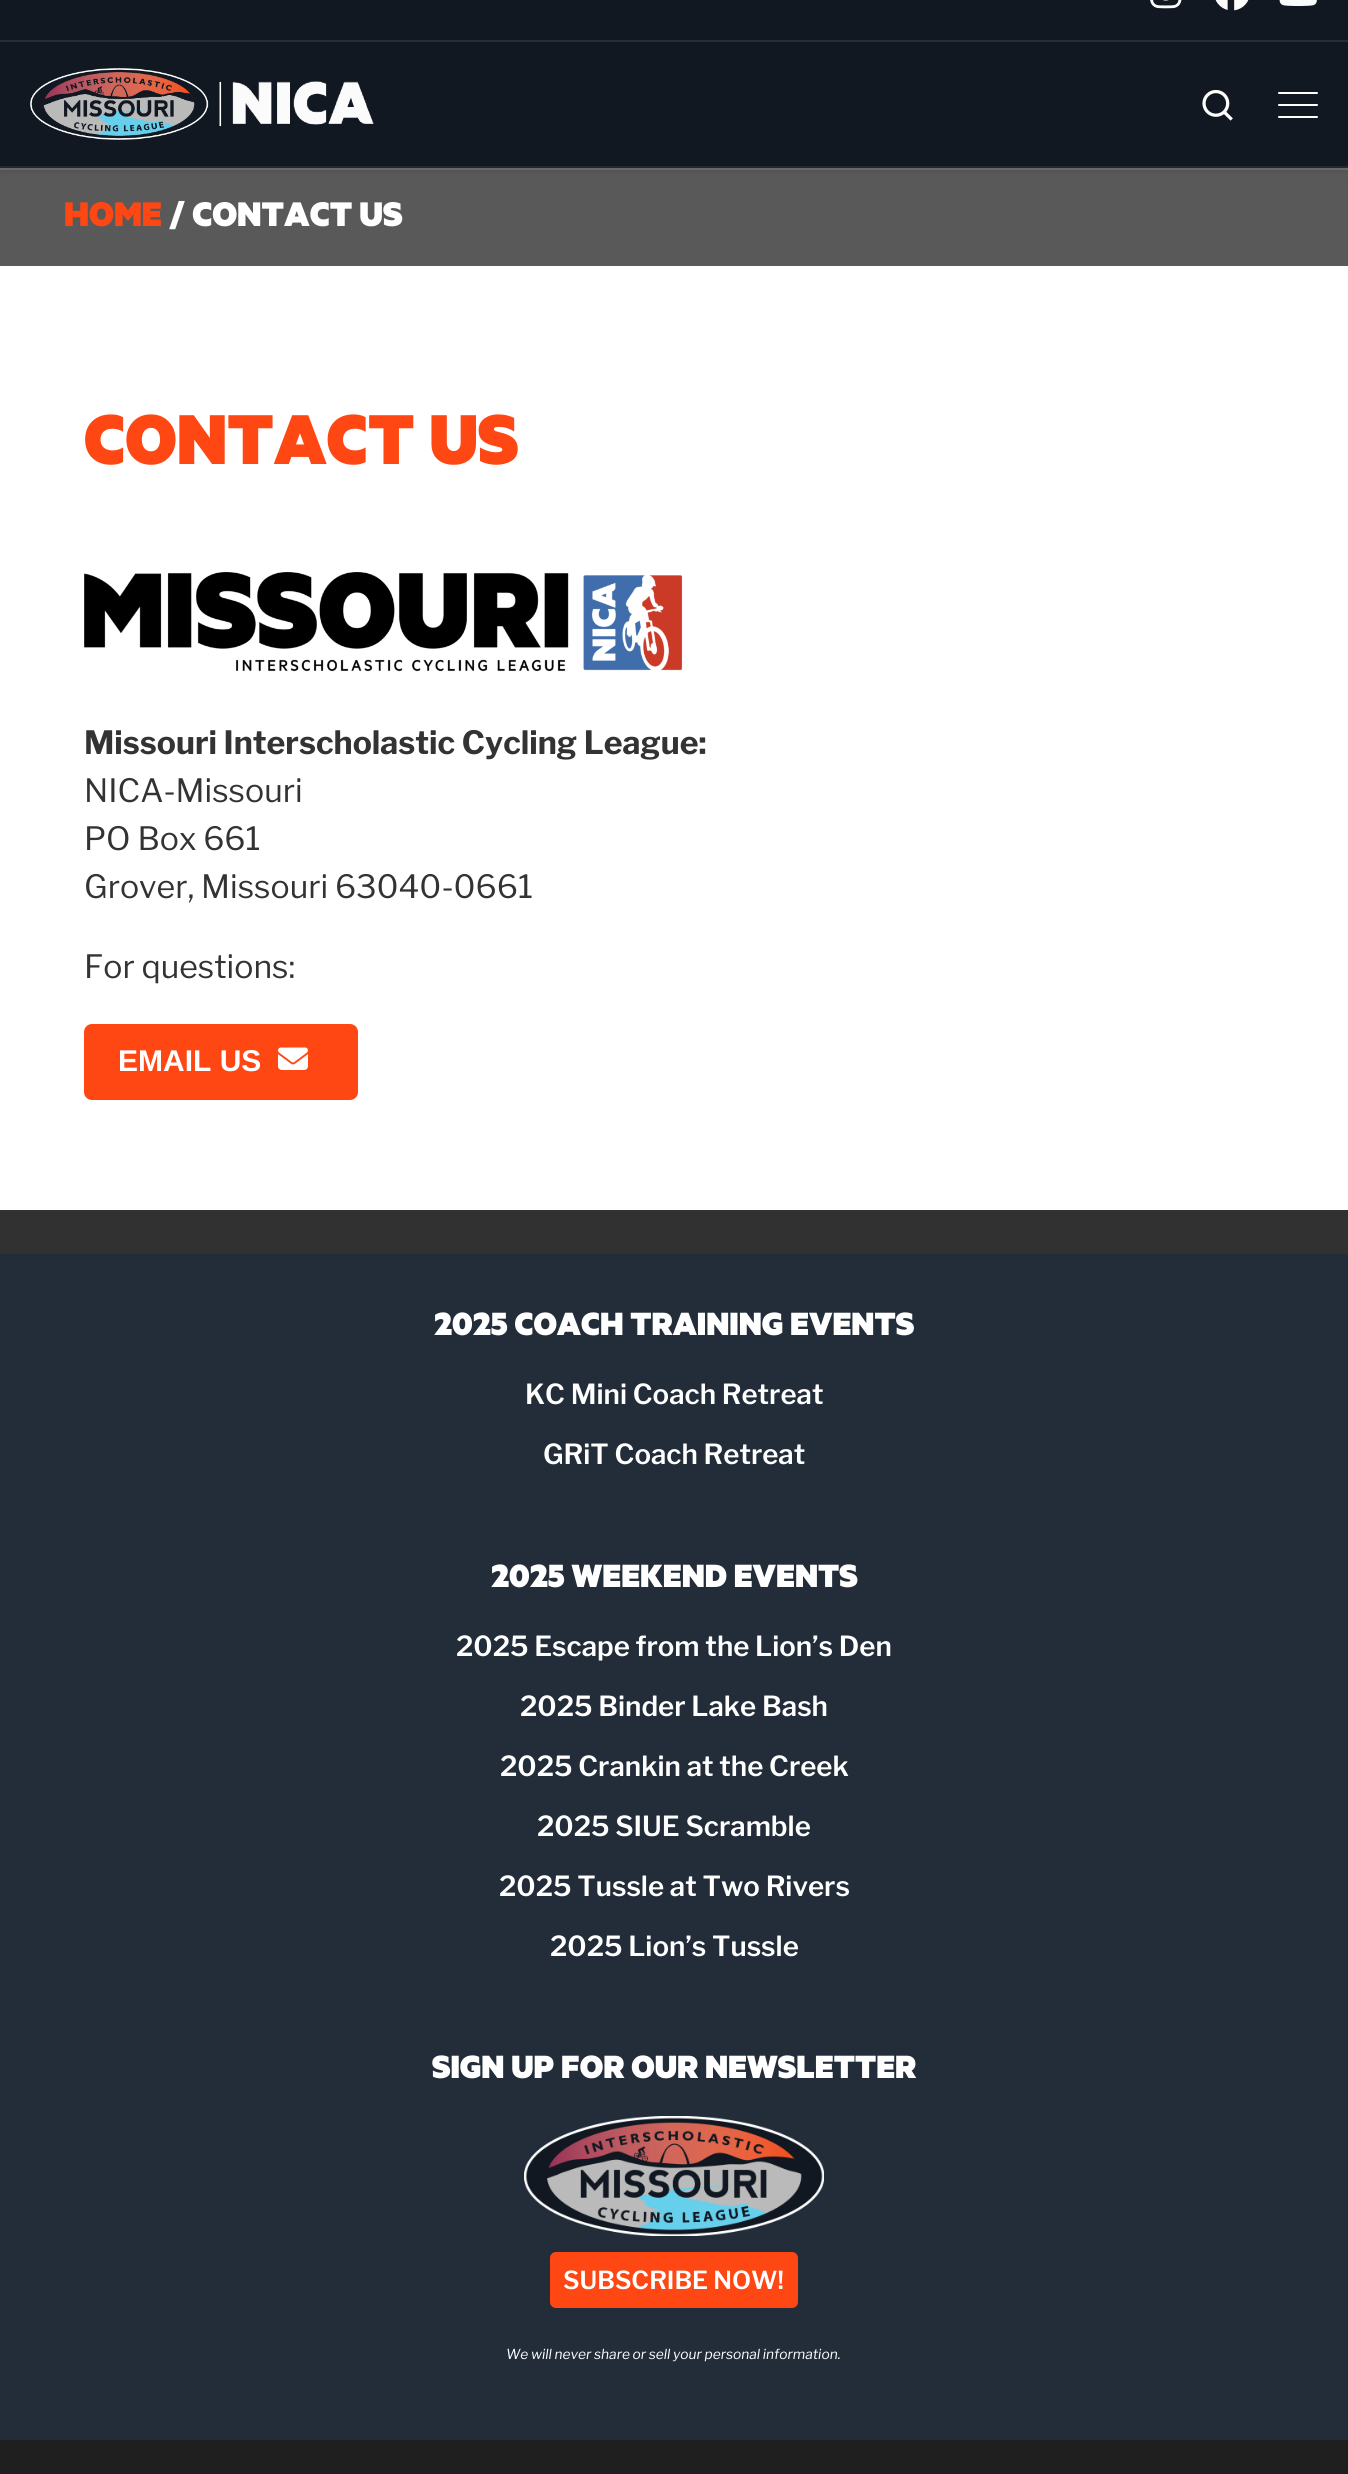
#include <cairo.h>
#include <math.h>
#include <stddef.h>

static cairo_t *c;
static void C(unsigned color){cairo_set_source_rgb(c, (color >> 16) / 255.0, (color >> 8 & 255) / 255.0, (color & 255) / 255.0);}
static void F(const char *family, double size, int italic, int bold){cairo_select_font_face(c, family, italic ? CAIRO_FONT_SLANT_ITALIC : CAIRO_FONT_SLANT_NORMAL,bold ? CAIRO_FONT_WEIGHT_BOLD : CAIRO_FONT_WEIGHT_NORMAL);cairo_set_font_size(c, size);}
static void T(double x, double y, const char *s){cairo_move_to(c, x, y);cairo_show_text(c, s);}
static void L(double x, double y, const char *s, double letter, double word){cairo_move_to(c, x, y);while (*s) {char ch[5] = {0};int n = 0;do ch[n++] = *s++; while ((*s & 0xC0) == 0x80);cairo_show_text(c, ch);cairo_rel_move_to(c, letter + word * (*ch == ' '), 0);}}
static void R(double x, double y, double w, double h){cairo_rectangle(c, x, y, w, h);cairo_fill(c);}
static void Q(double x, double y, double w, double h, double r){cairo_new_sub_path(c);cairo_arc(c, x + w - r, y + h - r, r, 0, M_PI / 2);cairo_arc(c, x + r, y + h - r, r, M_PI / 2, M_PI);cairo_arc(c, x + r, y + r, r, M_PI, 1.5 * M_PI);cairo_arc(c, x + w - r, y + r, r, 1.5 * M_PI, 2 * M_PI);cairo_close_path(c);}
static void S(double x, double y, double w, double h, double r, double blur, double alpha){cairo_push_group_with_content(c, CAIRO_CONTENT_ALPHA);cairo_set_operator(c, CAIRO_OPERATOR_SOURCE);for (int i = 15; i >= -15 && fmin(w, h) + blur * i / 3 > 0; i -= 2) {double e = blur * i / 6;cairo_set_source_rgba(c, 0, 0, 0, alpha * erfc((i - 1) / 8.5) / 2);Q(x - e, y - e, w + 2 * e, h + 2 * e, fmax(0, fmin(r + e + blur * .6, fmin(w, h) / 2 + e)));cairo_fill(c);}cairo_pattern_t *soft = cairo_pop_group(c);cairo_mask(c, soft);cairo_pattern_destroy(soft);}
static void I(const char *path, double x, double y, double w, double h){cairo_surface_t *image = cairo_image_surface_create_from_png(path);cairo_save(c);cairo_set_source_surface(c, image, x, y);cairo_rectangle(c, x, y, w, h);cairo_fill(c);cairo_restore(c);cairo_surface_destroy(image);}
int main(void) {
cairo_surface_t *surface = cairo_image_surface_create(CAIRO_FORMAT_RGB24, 1348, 2474);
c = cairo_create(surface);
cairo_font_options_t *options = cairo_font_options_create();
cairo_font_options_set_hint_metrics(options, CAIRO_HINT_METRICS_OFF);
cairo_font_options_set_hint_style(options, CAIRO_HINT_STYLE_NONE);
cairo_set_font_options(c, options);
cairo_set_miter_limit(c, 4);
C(0xffffff);
cairo_paint(c);
C(0x727272);
R(0,168,1348,2);
C(0x595959);
R(0,170,1348,96);
C(0x000000);
S(0,42,1348,126,0,5,.2);
C(0x111821);
R(0,0,1348,40);
C(0x262d35);
R(0,40,1348,2);
I("1.png",1150,0,32,9);
I("2.png",1215,0,34,11);
I("3.png",1279,0,38,6);
C(0x111821);
R(0,42,1348,124);
I("4.png",30,68,344,72);
I("5.png",1202,89,31,32);
C(0xffffff);
Q(1278,92,40,2,1);
cairo_fill(c);
Q(1278,104,40,2,1);
cairo_fill(c);
Q(1278,116,40,2,1);
cairo_fill(c);
C(0x232932);
R(0,166,1348,2);
F("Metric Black",38.5,0,0);
C(0xff4713);
T(64,226,"HOME");
C(0xffffff);
T(169,226,"/ CONTACT US");
F("Metric Black",79.5,0,0);
C(0xff4713);
T(84,464,"CONTACT US");
I("6.png",84,572,599,100);
F("Libre Franklin",32,0,1);
C(0x333333);
T(84,754,"Missouri Interscholastic Cycling League:");
F("Libre Franklin",32,0,0);
T(84,802,"NICA-Missouri");
T(84,850,"PO Box 661");
T(84,898,"Grover, Missouri 63040-0661");
T(84,978,"For questions:");
C(0xff4713);
Q(84,1024,274,76,8);
cairo_fill(c);
F("Liberation Sans",30,0,1);
C(0xffffff);
T(118,1071,"EMAIL US");
I("7.png",278,1047,30,23);
C(0x313131);
R(0,1210,1348,44);
C(0x222d39);
R(0,1254,1348,1186);
F("Metric Black",36.3,0,0);
C(0xffffff);
T(434,1335,"2025 COACH TRAINING EVENTS");
F("Libre Franklin SemiBold",27.6,0,0);
T(525,1404,"KC Mini Coach Retreat");
T(543,1464,"GRiT Coach Retreat");
F("Metric Black",36.3,0,0);
T(491,1587,"2025 WEEKEND EVENTS");
F("Libre Franklin SemiBold",27.6,0,0);
T(456,1656,"2025 Escape from the Lion’s Den");
T(520,1716,"2025 Binder Lake Bash");
T(500,1776,"2025 Crankin at the Creek");
T(537,1836,"2025 SIUE Scramble");
T(499,1896,"2025 Tussle at Two Rivers");
T(550,1956,"2025 Lion’s Tussle");
F("Metric Black",36.3,0,0);
T(432,2078,"SIGN UP FOR OUR NEWSLETTER");
I("8.png",524,2116,300,120);
C(0xff4713);
Q(550,2252,248,56,6);
cairo_fill(c);
F("Libre Franklin SemiBold",24.75,0,0);
C(0xffffff);
T(563,2289,"SUBSCRIBE NOW!");
F("Libre Franklin",13.75,1,0);
L(506,2359,"We will never share or sell your personal information.",0,-.25);
C(0x1f1f1f);
R(0,2440,1348,34);
cairo_surface_write_to_png(surface, "o.png");
cairo_font_options_destroy(options);
cairo_destroy(c);
cairo_surface_destroy(surface);
return 0;
}
